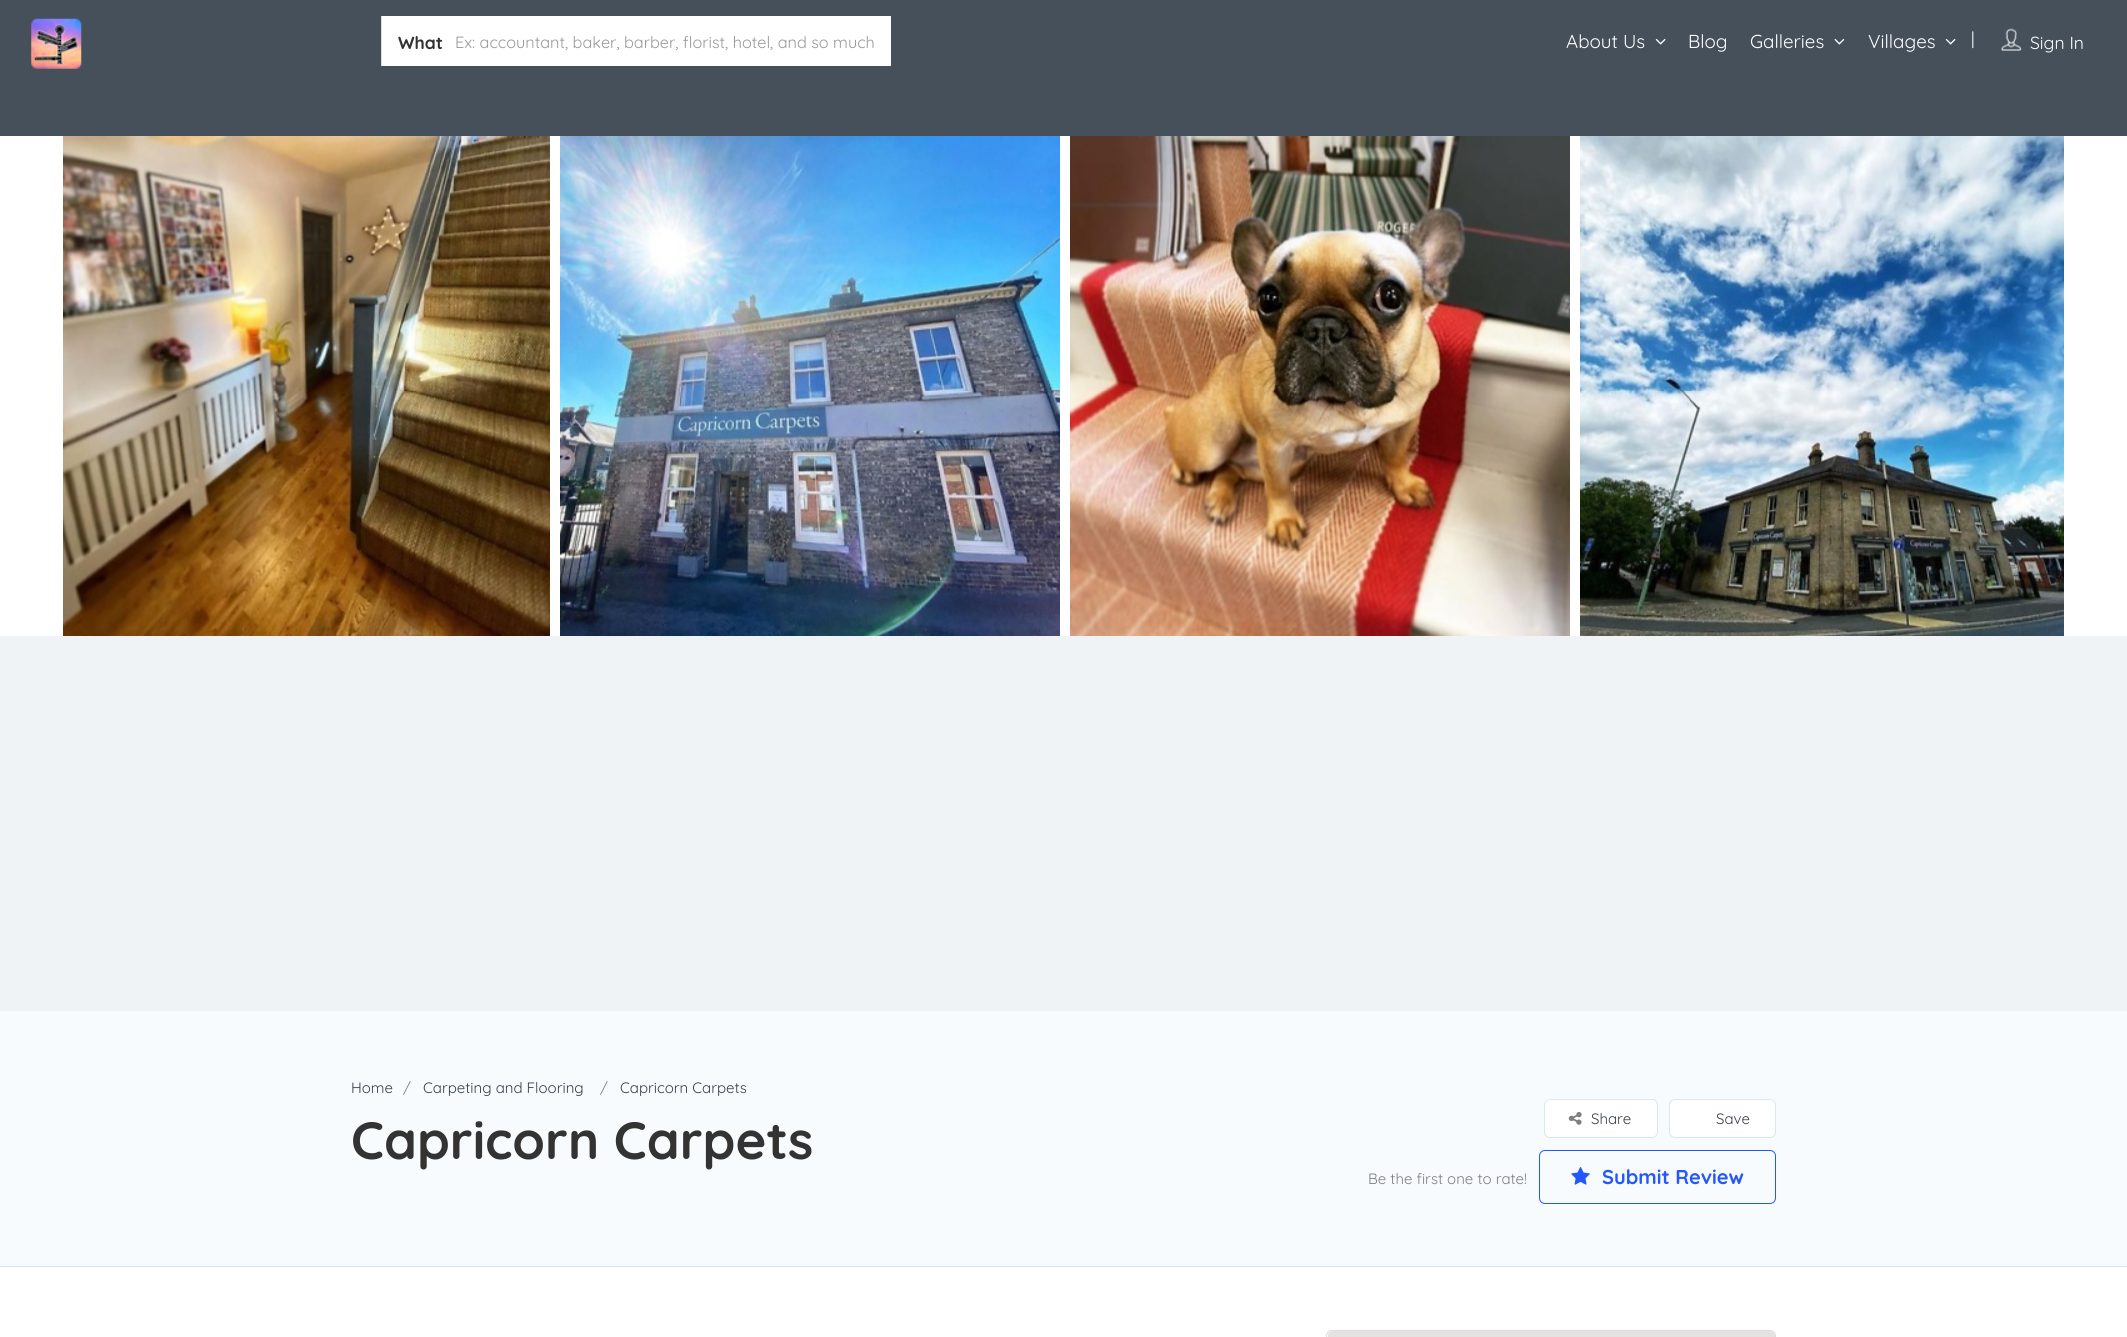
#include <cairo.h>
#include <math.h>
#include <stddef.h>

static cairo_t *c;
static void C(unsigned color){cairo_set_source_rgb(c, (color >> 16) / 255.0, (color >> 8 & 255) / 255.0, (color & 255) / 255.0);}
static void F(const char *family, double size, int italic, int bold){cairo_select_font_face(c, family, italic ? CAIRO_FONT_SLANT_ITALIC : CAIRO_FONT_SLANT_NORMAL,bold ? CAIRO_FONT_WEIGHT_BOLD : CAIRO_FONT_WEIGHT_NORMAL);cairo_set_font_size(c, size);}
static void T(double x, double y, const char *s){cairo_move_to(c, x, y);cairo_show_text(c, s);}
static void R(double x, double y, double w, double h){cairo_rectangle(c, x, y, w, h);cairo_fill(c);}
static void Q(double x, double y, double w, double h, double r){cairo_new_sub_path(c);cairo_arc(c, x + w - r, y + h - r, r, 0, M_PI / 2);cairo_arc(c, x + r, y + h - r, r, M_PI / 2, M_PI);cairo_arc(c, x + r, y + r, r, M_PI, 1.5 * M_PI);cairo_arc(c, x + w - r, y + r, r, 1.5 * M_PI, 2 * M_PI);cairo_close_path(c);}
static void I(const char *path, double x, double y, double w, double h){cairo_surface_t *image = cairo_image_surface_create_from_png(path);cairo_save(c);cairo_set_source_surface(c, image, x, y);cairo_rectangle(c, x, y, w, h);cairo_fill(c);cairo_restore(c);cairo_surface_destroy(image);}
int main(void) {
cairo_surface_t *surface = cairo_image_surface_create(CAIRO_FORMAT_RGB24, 2127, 1337);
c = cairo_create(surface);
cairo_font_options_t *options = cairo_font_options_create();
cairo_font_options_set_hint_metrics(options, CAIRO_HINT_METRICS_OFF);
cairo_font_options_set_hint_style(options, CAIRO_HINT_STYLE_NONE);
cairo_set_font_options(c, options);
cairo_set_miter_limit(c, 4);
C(0xeff3f6);
cairo_paint(c);
C(0x45505b);
R(0,0,2127,136);
I("1.png",31,18,51,51);
C(0xffffff);
R(382,16,509,50);
C(0xdedede);
R(381,16,1,50);
F("Quicksand",17.5,0,1);
C(0x333333);
T(398,49,"What");
F("Quicksand",16.25,0,0);
C(0x999999);
T(455,48,"Ex: accountant, baker, barber, florist, hotel, and so much");
F("Quicksand",18.75,0,0);
C(0xffffff);
T(1566,48,"About Us");
I("2.png",1655,38,11,7);
T(1688,48,"Blog");
T(1750,48,"Galleries");
I("3.png",1834,38,11,7);
T(1868,48,"Villages");
I("2.png",1945,38,11,7);
F("Quicksand",17.5,0,0);
T(1971,45,"|");
I("4.png",2001,28,21,23);
T(2030,49,"Sign In");
R(0,136,2127,500);
I("5.png",63,136,487,500);
I("6.png",560,136,500,500);
I("7.png",1070,136,500,500);
I("8.png",1580,136,484,500);
C(0xf7fbfe);
R(0,1011,2127,257);
C(0xdbe7ef);
R(0,1266,2127,1);
F("Quicksand",15,0,0);
C(0x363f48);
T(351,1093,"Home");
C(0x7f7f7f);
T(403,1093,"/");
C(0x363f48);
T(423,1093,"Carpeting and Flooring");
C(0x7f7f7f);
T(600,1093,"/");
C(0x363f48);
T(620,1093,"Capricorn Carpets");
F("Quicksand",52.5,0,1);
C(0x333333);
T(351,1159,"Capricorn Carpets");
C(0xffffff);
Q(1544.5,1099.5,113,38,5.5);
cairo_fill_preserve(c);
C(0xdbe7ef);
cairo_set_line_width(c,1);
cairo_stroke(c);
I("9.png",1568,1112,14,13);
F("Quicksand",15,0,0);
C(0x363f48);
T(1591,1124,"Share");
C(0xffffff);
Q(1669.5,1099.5,106,38,5.5);
cairo_fill_preserve(c);
C(0xdbe7ef);
cairo_stroke(c);
C(0x363f48);
T(1716,1124,"Save");
C(0x7f7f7f);
T(1368,1184,"Be the first one to rate!");
Q(1539.5,1150.5,236,53,5.5);
C(0x2458ff);
cairo_stroke(c);
I("10.png",1571,1167,19,18);
F("Quicksand",20,0,1);
T(1602,1184,"Submit Review");
C(0xffffff);
R(0,1268,2127,69);
C(0xfafafa);
Q(1326.5,1330.5,449,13,5.5);
cairo_fill_preserve(c);
C(0xdedede);
cairo_stroke(c);
C(0xe5e3df);
cairo_new_path(c);
cairo_move_to(c,1333,1331);
cairo_line_to(c,1770,1331);
cairo_curve_to(c,1773,1331,1775,1333,1775,1336);
cairo_line_to(c,1775,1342);
cairo_line_to(c,1328,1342);
cairo_line_to(c,1328,1336);
cairo_curve_to(c,1328,1333,1330,1331,1333,1331);
cairo_close_path(c);
cairo_fill(c);
cairo_surface_write_to_png(surface, "o.png");
cairo_font_options_destroy(options);
cairo_destroy(c);
cairo_surface_destroy(surface);
return 0;
}
